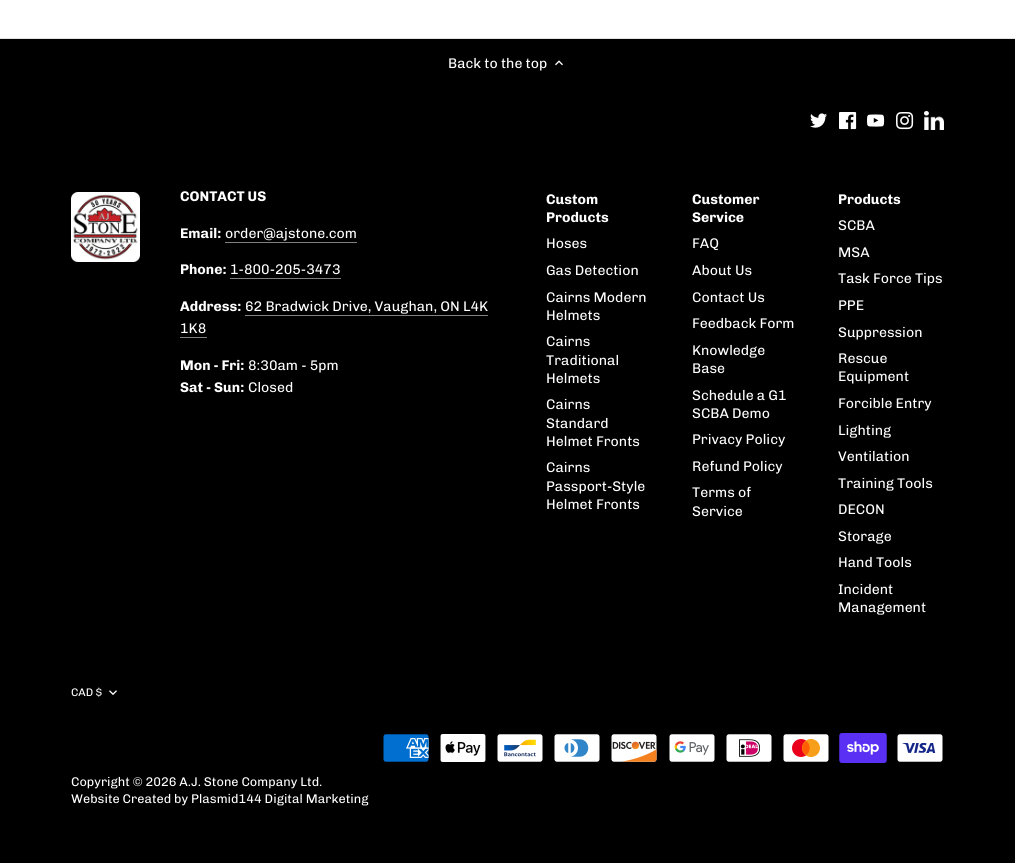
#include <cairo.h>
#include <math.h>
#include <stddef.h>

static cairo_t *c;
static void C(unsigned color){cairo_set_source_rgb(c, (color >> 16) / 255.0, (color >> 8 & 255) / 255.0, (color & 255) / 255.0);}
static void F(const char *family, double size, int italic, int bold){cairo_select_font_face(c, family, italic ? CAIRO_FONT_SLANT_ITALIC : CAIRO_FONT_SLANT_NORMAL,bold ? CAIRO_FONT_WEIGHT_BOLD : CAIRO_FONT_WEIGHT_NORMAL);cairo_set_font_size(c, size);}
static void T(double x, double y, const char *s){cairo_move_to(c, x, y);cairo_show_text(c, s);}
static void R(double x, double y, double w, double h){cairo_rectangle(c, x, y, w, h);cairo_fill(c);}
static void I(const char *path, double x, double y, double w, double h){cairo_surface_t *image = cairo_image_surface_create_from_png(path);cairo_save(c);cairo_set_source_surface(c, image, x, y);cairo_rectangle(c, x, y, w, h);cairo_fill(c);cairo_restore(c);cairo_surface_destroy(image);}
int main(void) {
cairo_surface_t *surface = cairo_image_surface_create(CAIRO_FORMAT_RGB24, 1015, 863);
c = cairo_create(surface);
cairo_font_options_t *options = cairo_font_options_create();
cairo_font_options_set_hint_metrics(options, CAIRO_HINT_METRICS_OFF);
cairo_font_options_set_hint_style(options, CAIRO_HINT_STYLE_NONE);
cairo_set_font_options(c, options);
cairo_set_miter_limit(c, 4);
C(0x000000);
cairo_paint(c);
C(0xffffff);
R(0,0,1015,38);
C(0xe2e2e2);
R(0,38,1015,1);
F("Chivo",14,0,0);
C(0xffffff);
T(448,68,"Back to the top");
I("1.png",555,60,8,6);
I("2.png",810,113,17,15);
I("3.png",839,112,18,18);
I("4.png",867,114,18,13);
I("5.png",896,112,18,18);
I("6.png",924,111,20,19);
I("7.png",71,192,69,70);
F("Chivo",14,0,1);
T(180,201,"CONTACT US");
T(180,238,"Email:");
F("Chivo",14,0,0);
T(225,238,"order@ajstone.com");
C(0x808080);
R(225,242,132,1);
F("Chivo",14,0,1);
C(0xffffff);
T(180,274,"Phone:");
F("Chivo",14,0,0);
T(230,274,"1-800-205-3473");
C(0x808080);
R(230,278,111,1);
F("Chivo",14,0,1);
C(0xffffff);
T(180,311,"Address:");
F("Chivo",14,0,0);
T(245,311,"62 Bradwick Drive, Vaughan, ON L4K");
C(0x808080);
R(245,315,243,1);
C(0xffffff);
T(180,333,"1K8");
C(0x808080);
R(180,337,27,1);
F("Chivo",14,0,1);
C(0xffffff);
T(180,370,"Mon - Fri:");
F("Chivo",14,0,0);
T(248,370,"8:30am - 5pm");
F("Chivo",14,0,1);
T(180,392,"Sat - Sun:");
F("Chivo",14,0,0);
T(248,392,"Closed");
F("Chivo",14,0,1);
T(546,204,"Custom");
T(546,222,"Products");
F("Chivo",14,0,0);
T(546,248,"Hoses");
T(546,275,"Gas Detection");
T(546,302,"Cairns Modern");
T(546,320,"Helmets");
T(546,346,"Cairns");
T(546,365,"Traditional");
T(546,383,"Helmets");
T(546,409,"Cairns");
T(546,428,"Standard");
T(546,446,"Helmet Fronts");
T(546,472,"Cairns");
T(546,491,"Passport-Style");
T(546,509,"Helmet Fronts");
F("Chivo",14,0,1);
T(692,204,"Customer");
T(692,222,"Service");
F("Chivo",14,0,0);
T(692,248,"FAQ");
T(692,275,"About Us");
T(692,302,"Contact Us");
T(692,328,"Feedback Form");
T(692,355,"Knowledge");
T(692,373,"Base");
T(692,400,"Schedule a G1");
T(692,418,"SCBA Demo");
T(692,444,"Privacy Policy");
T(692,471,"Refund Policy");
T(692,497,"Terms of");
T(692,516,"Service");
F("Chivo",14,0,1);
T(838,204,"Products");
F("Chivo",14,0,0);
T(838,230,"SCBA");
T(838,257,"MSA");
T(838,283,"Task Force Tips");
T(838,310,"PPE");
T(838,337,"Suppression");
T(838,363,"Rescue");
T(838,381,"Equipment");
T(838,408,"Forcible Entry");
T(838,435,"Lighting");
T(838,461,"Ventilation");
T(838,488,"Training Tools");
T(838,514,"DECON");
T(838,541,"Storage");
T(838,567,"Hand Tools");
T(838,594,"Incident");
T(838,612,"Management");
F("Chivo",11,0,0);
T(71,696,"CAD $");
I("8.png",109,690,8,5);
I("9.png",383,734,46,28);
I("10.png",440,734,46,28);
I("11.png",497,734,46,28);
I("12.png",554,734,46,28);
I("13.png",611,734,46,28);
I("14.png",669,734,46,28);
I("15.png",726,734,46,28);
I("16.png",783,734,46,28);
I("17.png",839,733,48,30);
I("18.png",897,734,46,28);
F("Chivo",12.6,0,0);
T(71,786,"Copyright © 2026 A.J. Stone Company Ltd.");
T(71,803,"Website Created by Plasmid144 Digital Marketing");
cairo_surface_write_to_png(surface, "o.png");
cairo_font_options_destroy(options);
cairo_destroy(c);
cairo_surface_destroy(surface);
return 0;
}
